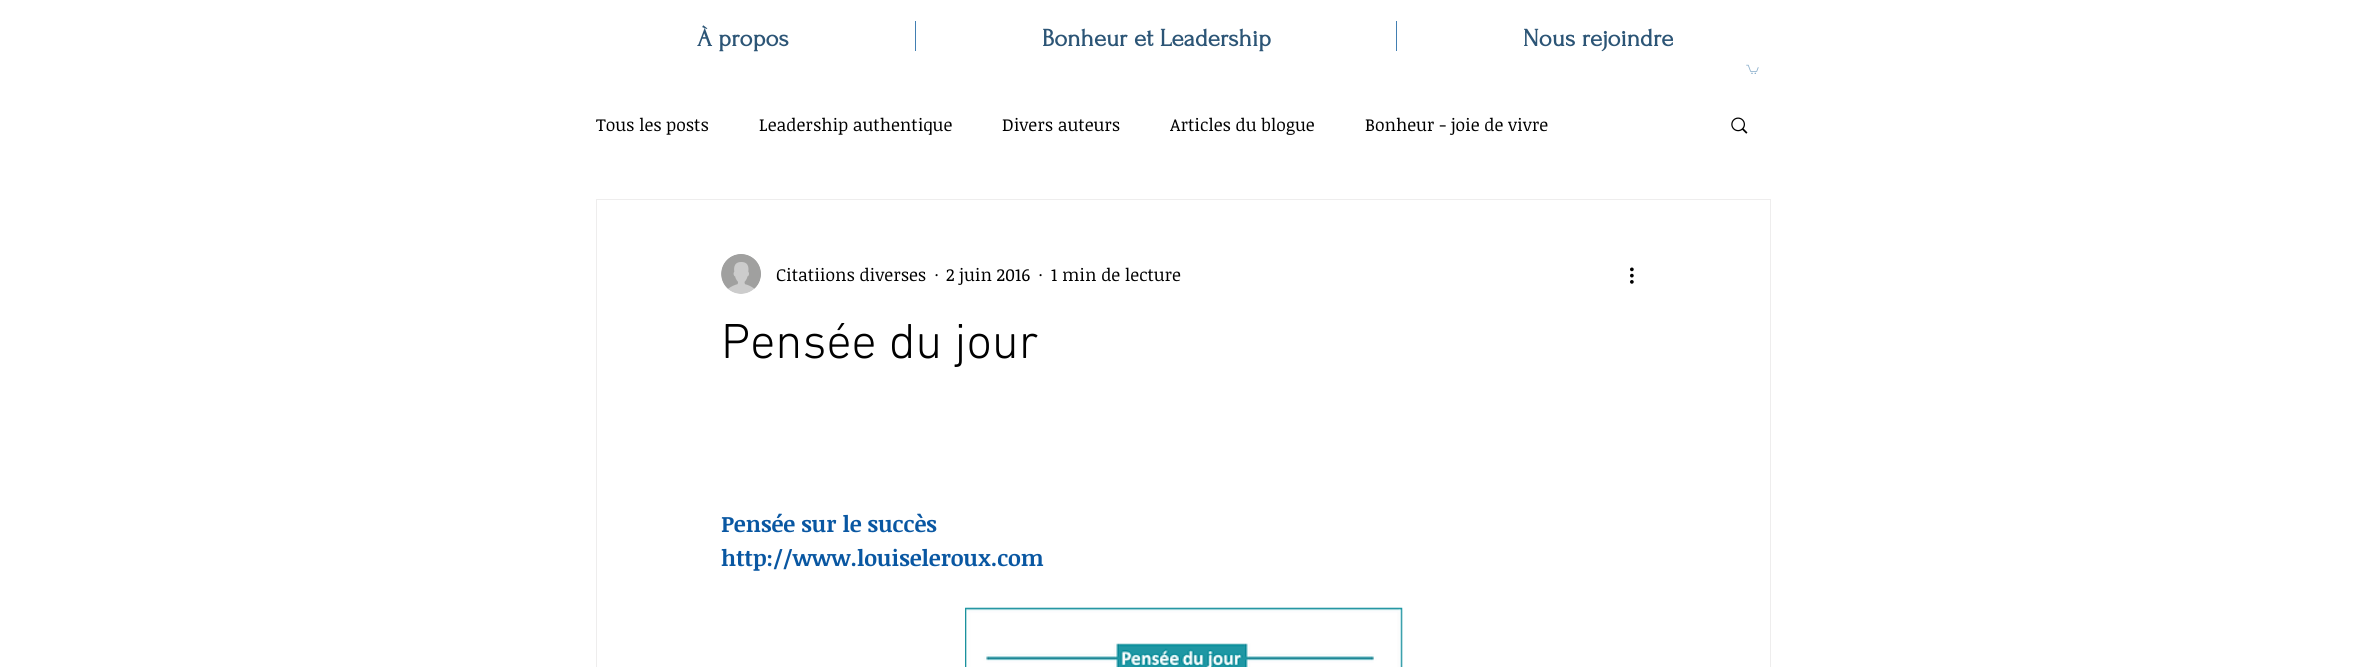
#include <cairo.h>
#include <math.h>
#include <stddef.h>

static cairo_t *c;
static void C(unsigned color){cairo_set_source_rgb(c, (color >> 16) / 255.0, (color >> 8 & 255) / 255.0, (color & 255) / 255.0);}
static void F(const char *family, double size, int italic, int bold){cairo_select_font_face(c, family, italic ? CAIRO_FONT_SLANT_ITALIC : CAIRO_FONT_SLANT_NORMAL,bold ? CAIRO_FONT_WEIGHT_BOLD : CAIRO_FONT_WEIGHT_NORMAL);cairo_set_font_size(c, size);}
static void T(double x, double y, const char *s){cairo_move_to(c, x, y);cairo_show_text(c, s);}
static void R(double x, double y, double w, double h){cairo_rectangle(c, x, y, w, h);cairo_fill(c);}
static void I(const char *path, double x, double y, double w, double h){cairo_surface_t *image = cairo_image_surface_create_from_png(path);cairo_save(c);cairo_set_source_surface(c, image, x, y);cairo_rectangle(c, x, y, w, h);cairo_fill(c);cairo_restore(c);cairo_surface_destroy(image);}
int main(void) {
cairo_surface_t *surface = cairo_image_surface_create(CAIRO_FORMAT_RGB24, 2367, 667);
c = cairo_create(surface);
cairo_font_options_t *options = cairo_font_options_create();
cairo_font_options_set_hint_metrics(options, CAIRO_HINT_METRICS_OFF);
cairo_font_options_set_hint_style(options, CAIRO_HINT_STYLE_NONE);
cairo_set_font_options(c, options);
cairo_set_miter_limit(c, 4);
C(0xffffff);
cairo_paint(c);
F("Forum",25,0,1);
C(0x2c5576);
T(697,46,"À propos");
C(0x427fb2);
R(915,21,1,30);
C(0x2c5576);
T(1042,46,"Bonheur et Leadership");
C(0x427fb2);
R(1396,21,1,30);
C(0x2c5576);
T(1523,46,"Nous rejoindre");
I("1.png",1746,64,13,10);
F("Noticia Text",17.5,0,0);
C(0x000000);
T(596,131,"Tous les posts");
T(759,131,"Leadership authentique");
T(1002,131,"Divers auteurs");
T(1170,131,"Articles du blogue");
T(1365,131,"Bonheur - joie de vivre");
I("2.png",1731,117,17,17);
cairo_rectangle(c,596.5,199.5,1174,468);
C(0xeeeded);
cairo_set_line_width(c,1);
cairo_stroke(c);
I("3.png",721,254,40,40);
C(0x000000);
T(776,281,"Citatiions diverses");
T(934,281,"·");
T(946,281,"2 juin 2016");
T(1038,281,"·");
T(1051,281,"1 min de lecture");
I("4.png",1630,267,4,17);
F("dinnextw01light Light",50,0,0);
T(721,358,"Pensée du jour");
F("Noticia Text",22.5,0,1);
C(0x0957a2);
T(721,532,"Pensée sur le succès");
T(721,566,"http://www.louiseleroux.com");
I("5.png",965,607,438,60);
cairo_surface_write_to_png(surface, "o.png");
cairo_font_options_destroy(options);
cairo_destroy(c);
cairo_surface_destroy(surface);
return 0;
}
